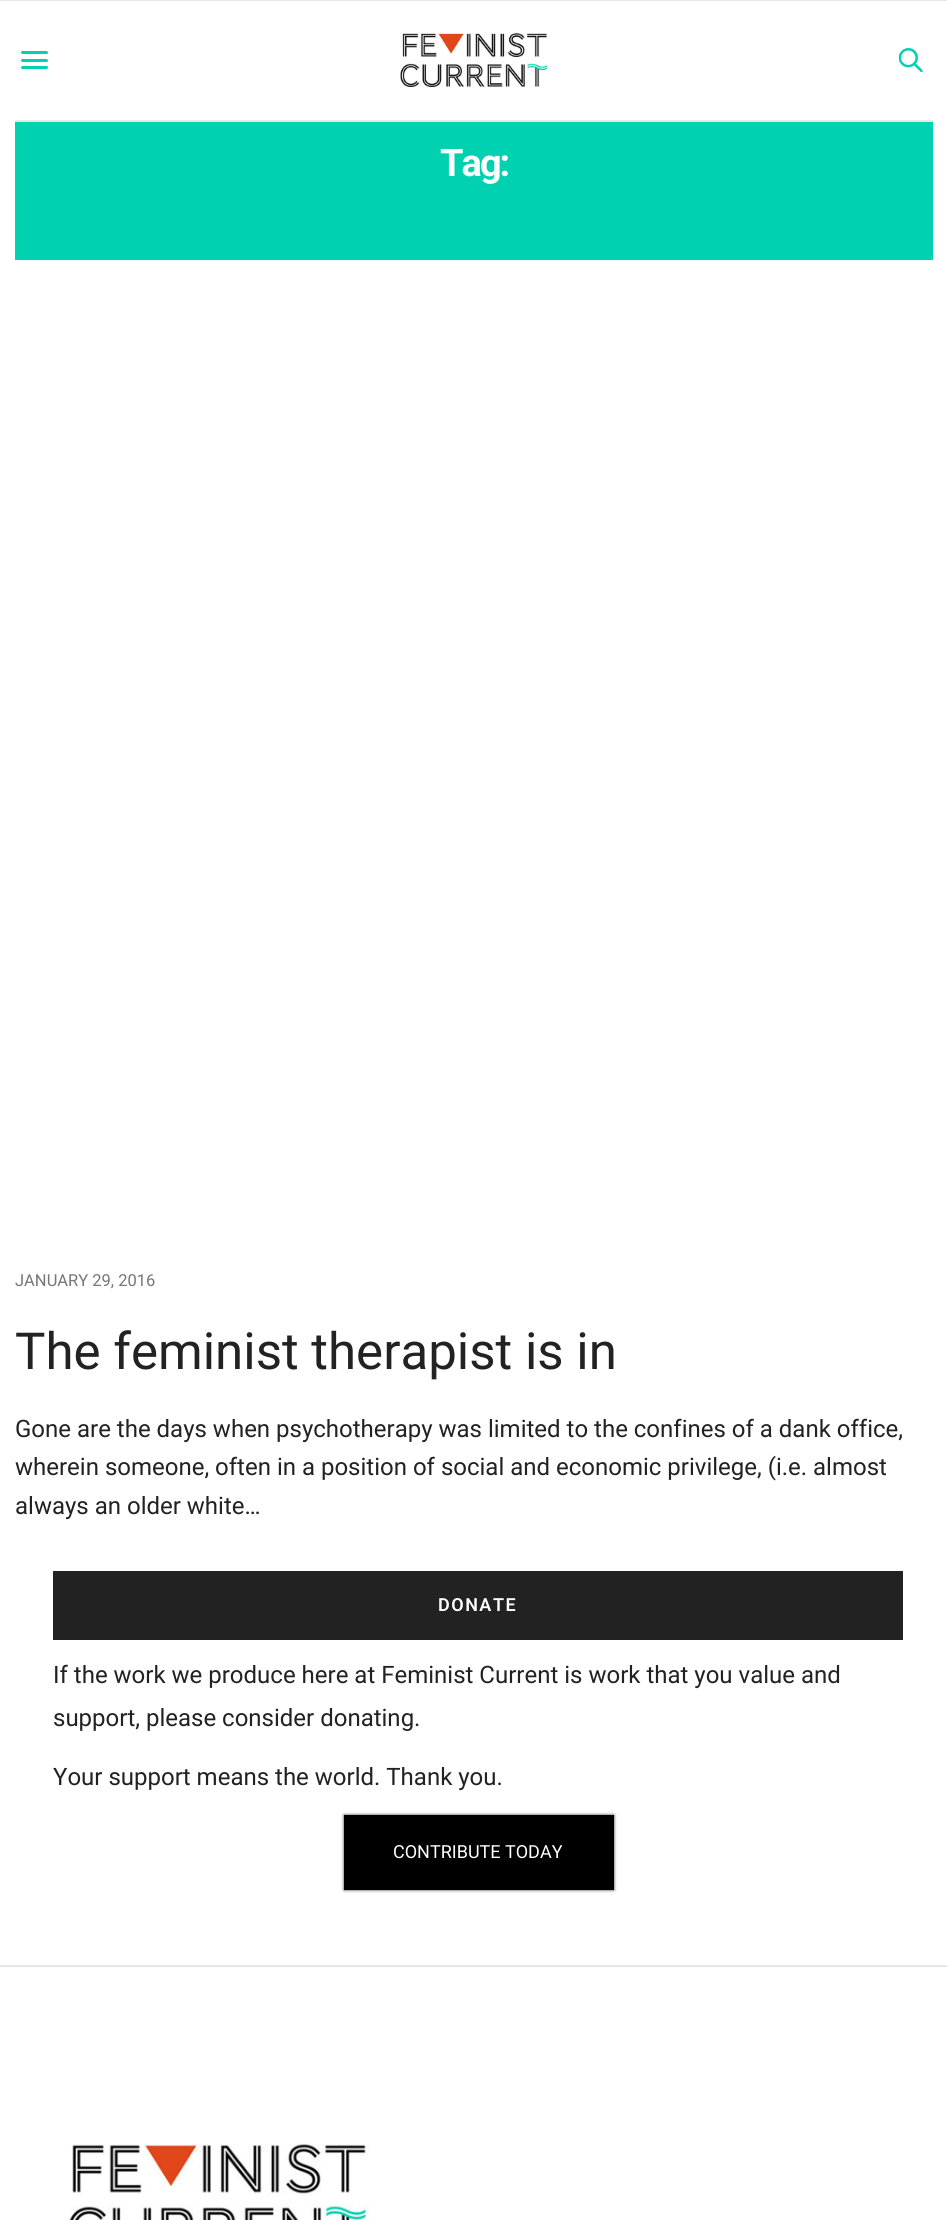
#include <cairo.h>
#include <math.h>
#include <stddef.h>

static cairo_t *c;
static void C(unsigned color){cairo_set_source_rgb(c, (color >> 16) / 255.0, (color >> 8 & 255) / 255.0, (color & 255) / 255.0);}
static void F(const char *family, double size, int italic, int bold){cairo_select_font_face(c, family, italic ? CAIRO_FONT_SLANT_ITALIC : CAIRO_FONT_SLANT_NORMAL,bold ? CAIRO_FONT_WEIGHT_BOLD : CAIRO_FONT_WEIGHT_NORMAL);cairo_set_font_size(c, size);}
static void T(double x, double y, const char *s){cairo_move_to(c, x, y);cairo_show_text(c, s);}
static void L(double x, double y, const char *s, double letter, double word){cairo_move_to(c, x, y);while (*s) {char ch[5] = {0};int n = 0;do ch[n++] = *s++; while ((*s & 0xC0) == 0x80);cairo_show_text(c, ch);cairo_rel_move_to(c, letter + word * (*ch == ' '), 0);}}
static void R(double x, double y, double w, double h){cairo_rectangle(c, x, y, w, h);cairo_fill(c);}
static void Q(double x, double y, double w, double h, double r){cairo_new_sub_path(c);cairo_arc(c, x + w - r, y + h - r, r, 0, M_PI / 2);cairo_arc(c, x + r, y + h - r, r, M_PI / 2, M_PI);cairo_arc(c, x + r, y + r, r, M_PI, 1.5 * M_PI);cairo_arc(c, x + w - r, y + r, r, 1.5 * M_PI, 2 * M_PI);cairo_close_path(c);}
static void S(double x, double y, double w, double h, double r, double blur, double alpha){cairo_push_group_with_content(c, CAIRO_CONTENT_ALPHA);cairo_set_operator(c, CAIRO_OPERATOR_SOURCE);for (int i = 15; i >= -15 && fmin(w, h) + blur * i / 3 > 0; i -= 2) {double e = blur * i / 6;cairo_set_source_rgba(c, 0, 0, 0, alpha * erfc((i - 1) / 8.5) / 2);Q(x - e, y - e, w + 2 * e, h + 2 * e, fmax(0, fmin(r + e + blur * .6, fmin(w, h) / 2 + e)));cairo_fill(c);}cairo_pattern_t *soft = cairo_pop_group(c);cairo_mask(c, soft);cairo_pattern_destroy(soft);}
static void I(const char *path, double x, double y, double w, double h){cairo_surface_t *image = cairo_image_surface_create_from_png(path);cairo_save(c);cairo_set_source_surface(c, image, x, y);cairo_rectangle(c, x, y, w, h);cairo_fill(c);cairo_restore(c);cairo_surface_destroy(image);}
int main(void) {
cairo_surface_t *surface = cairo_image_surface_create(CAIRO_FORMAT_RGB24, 947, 2220);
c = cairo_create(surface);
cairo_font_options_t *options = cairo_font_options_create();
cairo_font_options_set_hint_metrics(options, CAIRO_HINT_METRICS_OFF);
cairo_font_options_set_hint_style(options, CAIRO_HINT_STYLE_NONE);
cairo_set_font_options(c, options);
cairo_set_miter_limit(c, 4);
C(0xffffff);
cairo_paint(c);
C(0xe6e6e6);
R(0,0,947,1);
R(15,120,918,2);
C(0x00d1b0);
Q(21,51,27,3,1.5);
cairo_fill(c);
Q(21,59,27,3,1.5);
cairo_fill(c);
Q(21,66,27,3,1.5);
cairo_fill(c);
I("1.png",400,33,148,55);
I("2.png",899,48,24,24);
R(15,122,918,138);
F("Roboto",38,0,1);
C(0xffffff);
L(440,176,"Tag:",-2,0);
F("Roboto",16.5,0,0);
C(0x767676);
T(15,1286,"JANUARY 29, 2016");
F("Roboto",51,0,0);
C(0x222222);
T(15,1369,"The feminist therapist is in");
F("Roboto",24,0,0);
T(15,1437,"Gone are the days when psychotherapy was limited to the confines of a dank office,");
T(15,1475,"wherein someone, often in a position of social and economic privilege, (i.e. almost");
T(15,1514,"always an older white…");
R(53,1571,850,69);
F("Roboto SemiBold",18,0,0);
C(0xffffff);
L(438,1611,"DONATE",1.5,0);
F("Roboto",24,0,0);
C(0x222222);
T(53,1683,"If the work we produce here at Feminist Current is work that you value and");
T(53,1726,"support, please consider donating.");
T(53,1785,"Your support means the world. Thank you.");
C(0x333333);
S(344,1815,270,75,0,1.5,1);
C(0x000000);
R(344,1815,270,75);
F("Roboto",18,0,0);
C(0xffffff);
T(393,1858,"CONTRIBUTE TODAY");
C(0xe6e6e6);
R(0,1965,947,2);
I("3.png",69,2143,301,77);
cairo_surface_write_to_png(surface, "o.png");
cairo_font_options_destroy(options);
cairo_destroy(c);
cairo_surface_destroy(surface);
return 0;
}
